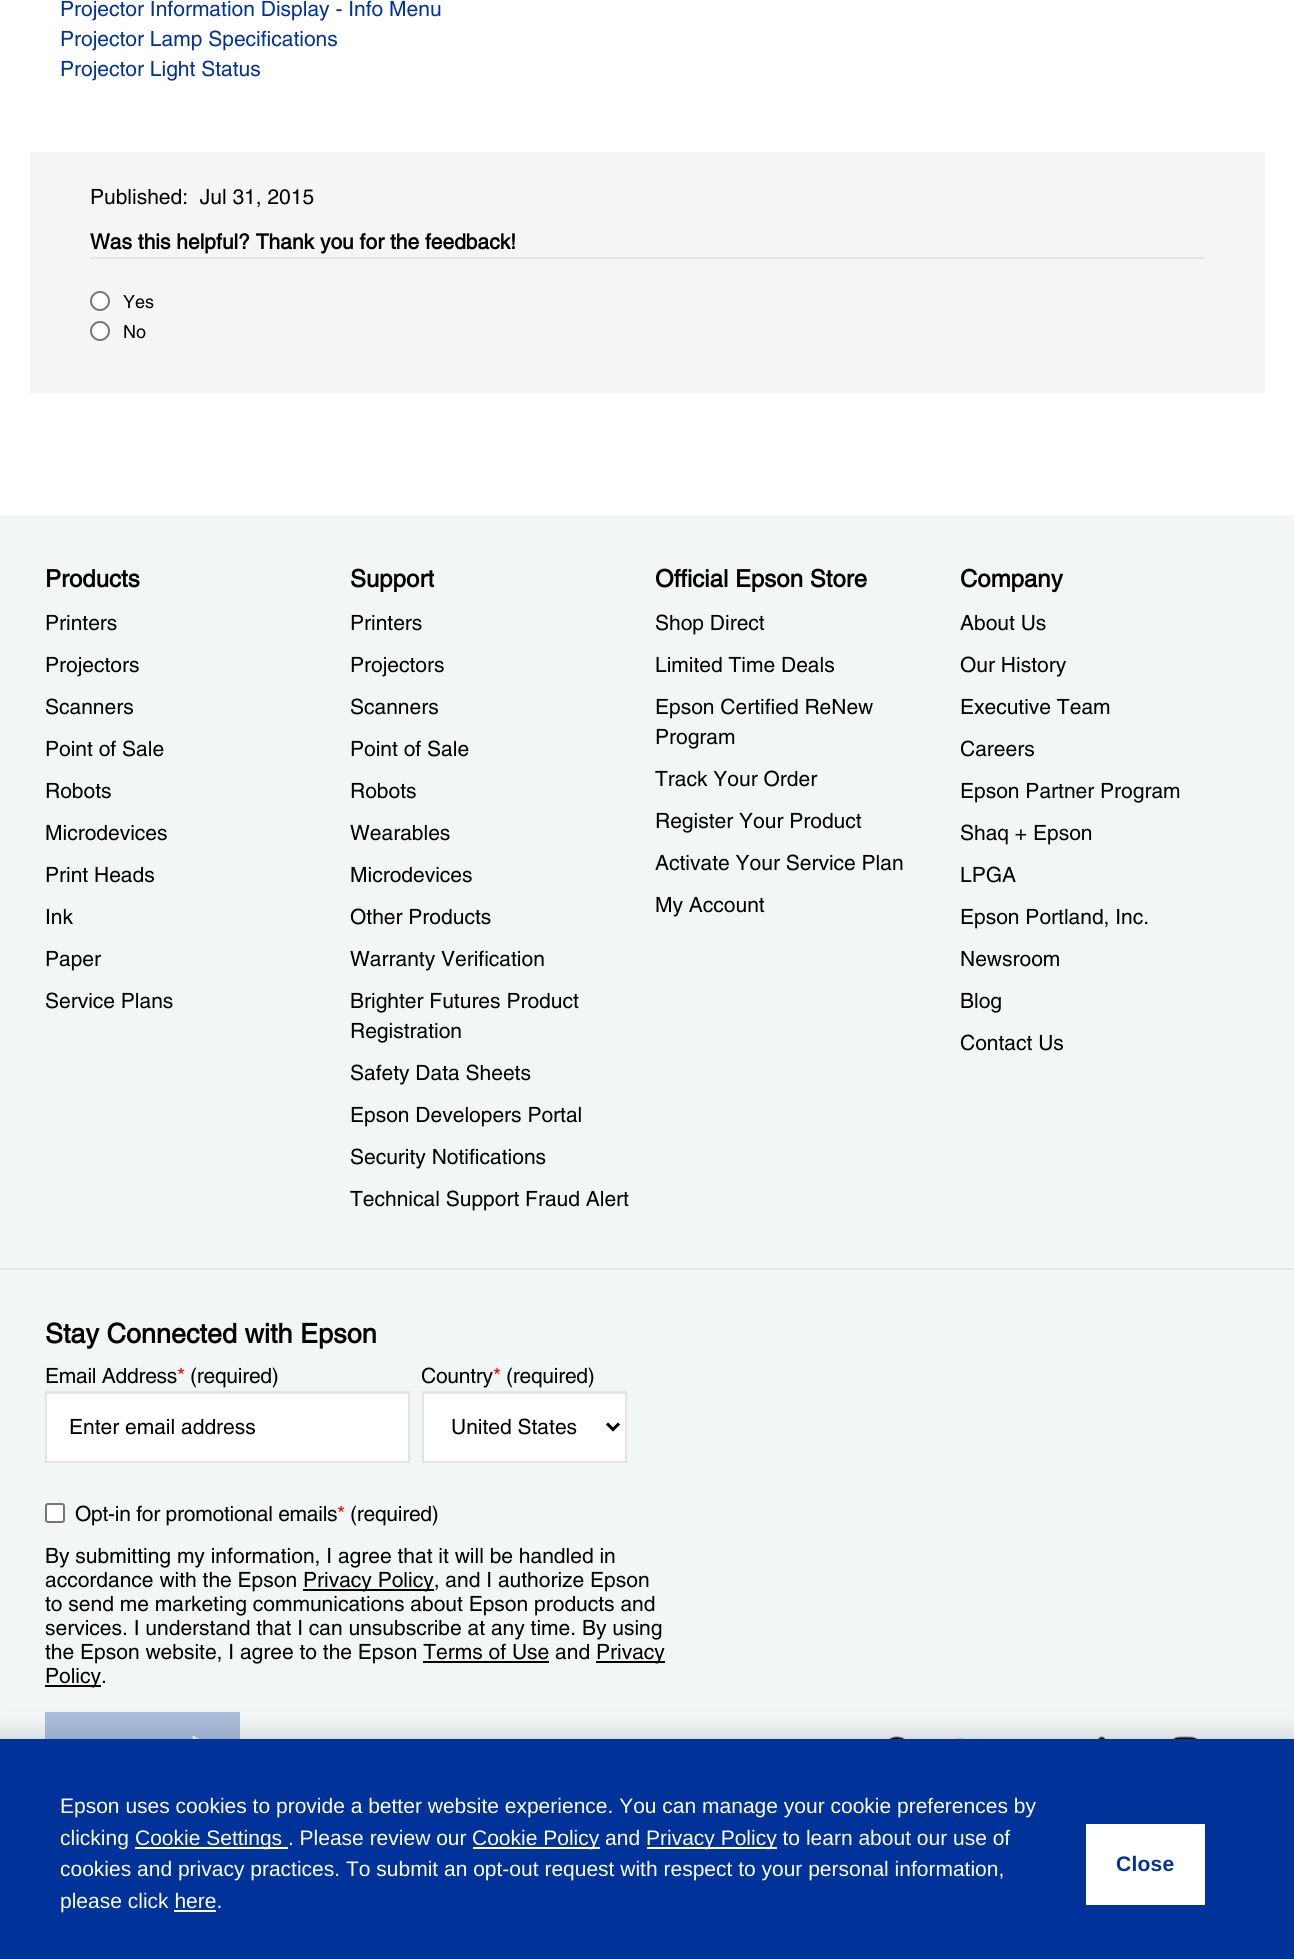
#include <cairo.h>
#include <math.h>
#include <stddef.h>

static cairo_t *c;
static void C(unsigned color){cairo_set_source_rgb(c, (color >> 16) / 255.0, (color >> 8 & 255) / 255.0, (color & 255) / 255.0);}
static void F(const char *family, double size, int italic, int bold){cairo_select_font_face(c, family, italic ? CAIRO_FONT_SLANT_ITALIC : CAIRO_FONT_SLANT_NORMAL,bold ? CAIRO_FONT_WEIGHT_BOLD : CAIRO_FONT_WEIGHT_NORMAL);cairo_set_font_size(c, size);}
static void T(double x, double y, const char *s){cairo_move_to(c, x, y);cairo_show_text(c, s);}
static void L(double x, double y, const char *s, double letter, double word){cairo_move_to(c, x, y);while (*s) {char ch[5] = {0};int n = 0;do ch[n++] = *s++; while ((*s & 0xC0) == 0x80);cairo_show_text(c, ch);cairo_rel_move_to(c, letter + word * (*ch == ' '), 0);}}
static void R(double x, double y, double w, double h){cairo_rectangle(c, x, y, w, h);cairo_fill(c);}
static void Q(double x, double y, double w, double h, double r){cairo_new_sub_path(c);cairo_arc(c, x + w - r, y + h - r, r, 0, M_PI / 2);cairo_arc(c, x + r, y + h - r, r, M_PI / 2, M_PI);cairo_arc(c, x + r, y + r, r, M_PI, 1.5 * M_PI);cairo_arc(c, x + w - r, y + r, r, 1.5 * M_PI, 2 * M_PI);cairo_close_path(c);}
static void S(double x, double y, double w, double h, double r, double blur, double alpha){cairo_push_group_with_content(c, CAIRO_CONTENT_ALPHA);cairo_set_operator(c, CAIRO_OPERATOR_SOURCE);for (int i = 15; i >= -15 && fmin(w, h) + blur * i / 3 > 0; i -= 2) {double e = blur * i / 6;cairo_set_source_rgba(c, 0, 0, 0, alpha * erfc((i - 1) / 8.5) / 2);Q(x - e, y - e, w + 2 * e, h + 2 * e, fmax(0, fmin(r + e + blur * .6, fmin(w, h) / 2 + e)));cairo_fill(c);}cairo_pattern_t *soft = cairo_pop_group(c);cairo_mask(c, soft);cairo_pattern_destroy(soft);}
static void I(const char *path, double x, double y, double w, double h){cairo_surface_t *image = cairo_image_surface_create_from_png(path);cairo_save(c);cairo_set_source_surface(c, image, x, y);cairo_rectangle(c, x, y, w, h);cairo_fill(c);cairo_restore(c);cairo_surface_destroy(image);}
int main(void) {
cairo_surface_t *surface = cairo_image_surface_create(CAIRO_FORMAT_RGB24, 1294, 1959);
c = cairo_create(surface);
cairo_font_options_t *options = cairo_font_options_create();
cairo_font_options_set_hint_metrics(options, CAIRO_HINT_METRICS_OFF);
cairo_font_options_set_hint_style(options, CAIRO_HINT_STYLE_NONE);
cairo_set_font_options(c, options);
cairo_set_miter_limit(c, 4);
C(0xffffff);
cairo_paint(c);
F("Helvetica",21,0,0);
C(0x003399);
T(60,16,"Projector Information Display - Info Menu");
T(60,46,"Projector Lamp Specifications");
T(60,76,"Projector Light Status");
C(0xf4f5f7);
R(30,152,1235,241);
C(0x000000);
T(90,204,"Published:  Jul 31, 2015");
F("Helvetica",21,0,1);
T(90,249,"Was this helpful? Thank you for the feedback!");
C(0xe5e5e5);
R(90,257,1115,2);
C(0xffffff);
cairo_new_path(c);
cairo_arc(c,100,301,9,0,2 * M_PI);
cairo_fill_preserve(c);
C(0x767676);
cairo_stroke(c);
F("Helvetica",18,0,0);
C(0x000000);
T(123,308,"Yes");
C(0xffffff);
cairo_new_path(c);
cairo_arc(c,100,331,9,0,2 * M_PI);
cairo_fill_preserve(c);
C(0x767676);
cairo_stroke(c);
C(0x000000);
T(123,338,"No");
C(0xf2f6f6);
R(0,515,1294,1224);
F("Helvetica",24,0,1);
C(0x000000);
T(45,587,"Products");
F("Helvetica",21,0,0);
T(45,630,"Printers");
T(45,672,"Projectors");
T(45,714,"Scanners");
T(45,756,"Point of Sale");
T(45,798,"Robots");
T(45,840,"Microdevices");
T(45,882,"Print Heads");
T(45,924,"Ink");
T(45,966,"Paper");
T(45,1008,"Service Plans");
F("Helvetica",24,0,1);
T(350,587,"Support");
F("Helvetica",21,0,0);
T(350,630,"Printers");
T(350,672,"Projectors");
T(350,714,"Scanners");
T(350,756,"Point of Sale");
T(350,798,"Robots");
T(350,840,"Wearables");
T(350,882,"Microdevices");
T(350,924,"Other Products");
T(350,966,"Warranty Verification");
T(350,1008,"Brighter Futures Product");
T(350,1038,"Registration");
T(350,1080,"Safety Data Sheets");
T(350,1122,"Epson Developers Portal");
T(350,1164,"Security Notifications");
T(350,1206,"Technical Support Fraud Alert");
F("Helvetica",24,0,1);
T(655,587,"Official Epson Store");
F("Helvetica",21,0,0);
T(655,630,"Shop Direct");
T(655,672,"Limited Time Deals");
T(655,714,"Epson Certified ReNew");
T(655,744,"Program");
T(655,786,"Track Your Order");
T(655,828,"Register Your Product");
T(655,870,"Activate Your Service Plan");
T(655,912,"My Account");
F("Helvetica",24,0,1);
T(960,587,"Company");
F("Helvetica",21,0,0);
T(960,630,"About Us");
T(960,672,"Our History");
T(960,714,"Executive Team");
T(960,756,"Careers");
T(960,798,"Epson Partner Program");
T(960,840,"Shaq + Epson");
T(960,882,"LPGA");
T(960,924,"Epson Portland, Inc.");
T(960,966,"Newsroom");
T(960,1008,"Blog");
T(960,1050,"Contact Us");
C(0xe5e5e5);
R(0,1268,1294,2);
F("Helvetica",27,0,1);
C(0x000000);
T(45,1343,"Stay Connected with Epson");
F("Helvetica",21,0,0);
L(45,1383,"Email Address",-.25,0);
C(0xff0000);
L(177,1383,"*",-.25,0);
C(0x000000);
L(190,1383,"(required)",-.25,0);
C(0xffffff);
R(47,1394,361,67);
C(0xececec);
R(47,1393,361,1);
cairo_rectangle(c,46,1392,363,70);
C(0xe4e4e4);
cairo_stroke(c);
C(0x000000);
T(69,1434,"Enter email address");
L(421,1383,"Country",-.25,0);
C(0xff0000);
L(493,1383,"*",-.25,0);
C(0x000000);
L(506,1383,"(required)",-.25,0);
C(0xffffff);
R(424,1394,201,67);
C(0xececec);
R(423,1393,203,1);
cairo_rectangle(c,423,1392,203,70);
C(0xe4e4e4);
cairo_stroke(c);
cairo_new_path(c);
cairo_move_to(c,607,1423.5);
cairo_line_to(c,613,1429.5);
cairo_line_to(c,619,1423.5);
C(0x000000);
cairo_set_line_width(c,3);
cairo_stroke(c);
T(451,1434,"United States");
C(0xffffff);
Q(46,1504,18,18,2);
cairo_fill_preserve(c);
C(0x767676);
cairo_set_line_width(c,2);
cairo_stroke(c);
C(0x000000);
L(75,1521,"Opt-in for promotional emails",-.25,0);
C(0xff0000);
L(337,1521,"*",-.25,0);
C(0x000000);
L(350,1521,"(required)",-.25,0);
T(45,1563,"By submitting my information, I agree that it will be handled in");
T(45,1587,"accordance with the Epson");
R(303,1589,131,2);
T(303,1587,"Privacy Policy, and I authorize Epson");
T(45,1611,"to send me marketing communications about Epson products and");
T(45,1635,"services. I understand that I can unsubscribe at any time. By using");
T(45,1659,"the Epson website, I agree to the Epson Terms of Use and");
R(596,1661,69,2);
T(596,1659,"Privacy");
R(423,1661,126,2);
R(45,1685,56,2);
T(45,1683,"Policy.");
C(0xa9bcda);
R(45,1712,195,27);
I("1.png",192,1735,7,4);
I("2.png",888,1736,18,3);
I("3.png",956,1738,25,1);
I("4.png",1097,1736,9,3);
I("5.png",1173,1736,25,3);
C(0x000000);
S(0,1739,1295,220,0,13.5,.2);
C(0x003399);
R(0,1739,1294,220);
F("Liberation Sans",21,0,0);
C(0xffffff);
T(60,1813,"Epson uses cookies to provide a better website experience. You can manage your cookie preferences by");
T(60,1845,"clicking");
R(135,1847,153,2);
T(135,1845,"Cookie Settings . Please review our");
R(473,1847,127,2);
T(472,1845,"Cookie Policy and");
R(647,1847,130,2);
T(646,1845,"Privacy Policy to learn about our use of");
T(60,1876,"cookies and privacy practices. To submit an opt-out request with respect to your personal information,");
T(60,1908,"please click here.");
R(174,1910,42,2);
R(1086,1824,119,81);
F("Liberation Sans",21,0,1);
C(0x003399);
L(1116,1871,"Close",.25,0);
cairo_surface_write_to_png(surface, "o.png");
cairo_font_options_destroy(options);
cairo_destroy(c);
cairo_surface_destroy(surface);
return 0;
}
